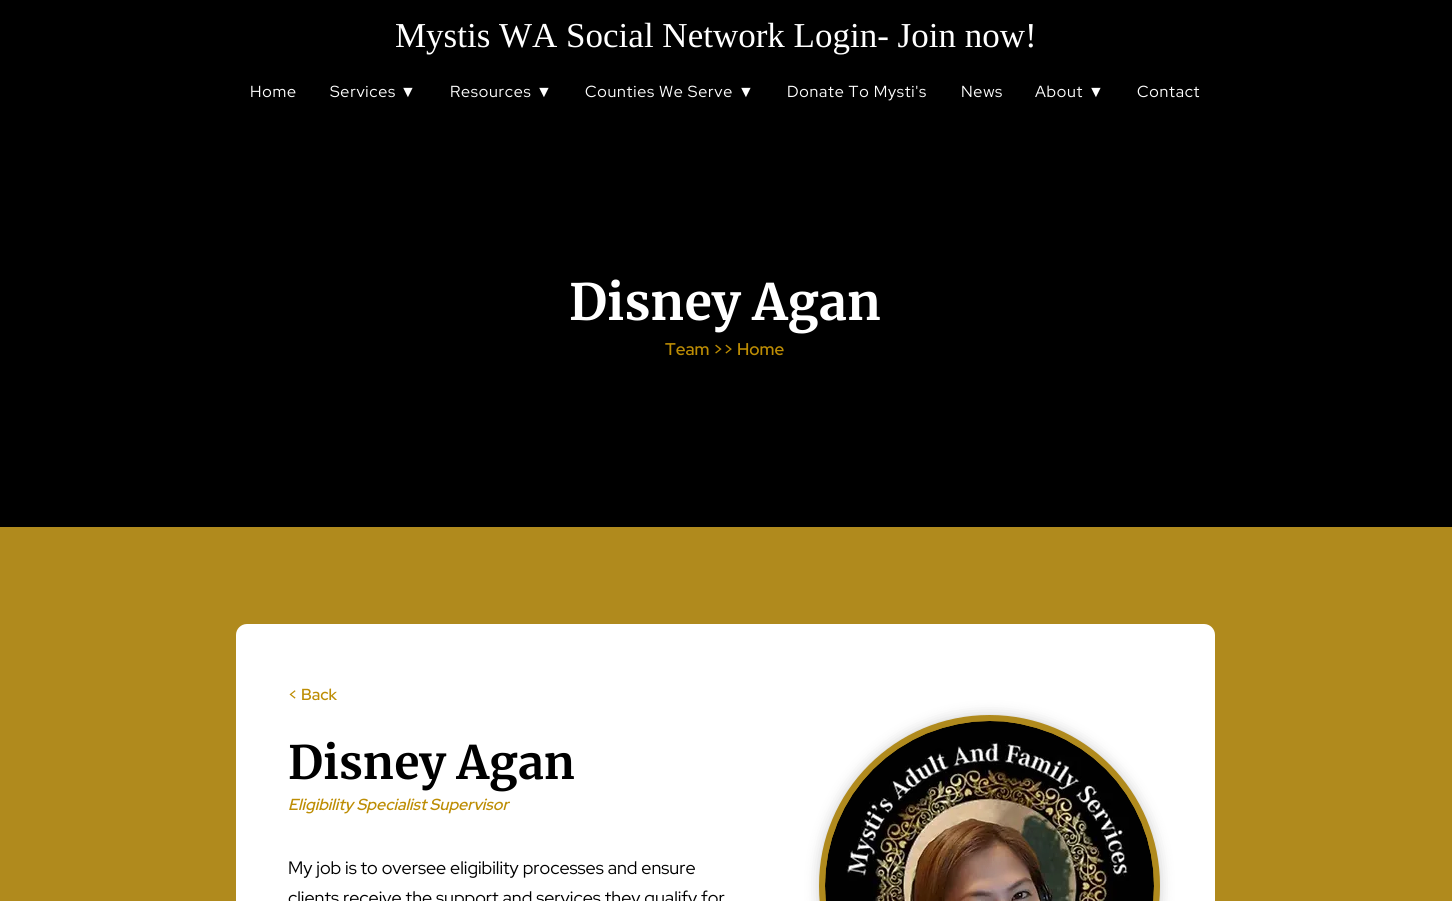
#include <cairo.h>
#include <math.h>
#include <stddef.h>

static cairo_t *c;
static void C(unsigned color){cairo_set_source_rgb(c, (color >> 16) / 255.0, (color >> 8 & 255) / 255.0, (color & 255) / 255.0);}
static void F(const char *family, double size, int italic, int bold){cairo_select_font_face(c, family, italic ? CAIRO_FONT_SLANT_ITALIC : CAIRO_FONT_SLANT_NORMAL,bold ? CAIRO_FONT_WEIGHT_BOLD : CAIRO_FONT_WEIGHT_NORMAL);cairo_set_font_size(c, size);}
static void T(double x, double y, const char *s){cairo_move_to(c, x, y);cairo_show_text(c, s);}
static void L(double x, double y, const char *s, double letter, double word){cairo_move_to(c, x, y);while (*s) {char ch[5] = {0};int n = 0;do ch[n++] = *s++; while ((*s & 0xC0) == 0x80);cairo_show_text(c, ch);cairo_rel_move_to(c, letter + word * (*ch == ' '), 0);}}
static void R(double x, double y, double w, double h){cairo_rectangle(c, x, y, w, h);cairo_fill(c);}
static void Q(double x, double y, double w, double h, double r){cairo_new_sub_path(c);cairo_arc(c, x + w - r, y + h - r, r, 0, M_PI / 2);cairo_arc(c, x + r, y + h - r, r, M_PI / 2, M_PI);cairo_arc(c, x + r, y + r, r, M_PI, 1.5 * M_PI);cairo_arc(c, x + w - r, y + r, r, 1.5 * M_PI, 2 * M_PI);cairo_close_path(c);}
static void S(double x, double y, double w, double h, double r, double blur, double alpha){cairo_push_group_with_content(c, CAIRO_CONTENT_ALPHA);cairo_set_operator(c, CAIRO_OPERATOR_SOURCE);for (int i = 15; i >= -15 && fmin(w, h) + blur * i / 3 > 0; i -= 2) {double e = blur * i / 6;cairo_set_source_rgba(c, 0, 0, 0, alpha * erfc((i - 1) / 8.5) / 2);Q(x - e, y - e, w + 2 * e, h + 2 * e, fmax(0, fmin(r + e + blur * .6, fmin(w, h) / 2 + e)));cairo_fill(c);}cairo_pattern_t *soft = cairo_pop_group(c);cairo_mask(c, soft);cairo_pattern_destroy(soft);}
static void I(const char *path, double x, double y, double w, double h){cairo_surface_t *image = cairo_image_surface_create_from_png(path);cairo_save(c);cairo_set_source_surface(c, image, x, y);cairo_rectangle(c, x, y, w, h);cairo_fill(c);cairo_restore(c);cairo_surface_destroy(image);}
int main(void) {
cairo_surface_t *surface = cairo_image_surface_create(CAIRO_FORMAT_RGB24, 1452, 901);
c = cairo_create(surface);
cairo_font_options_t *options = cairo_font_options_create();
cairo_font_options_set_hint_metrics(options, CAIRO_HINT_METRICS_OFF);
cairo_font_options_set_hint_style(options, CAIRO_HINT_STYLE_NONE);
cairo_set_font_options(c, options);
cairo_set_miter_limit(c, 4);
C(0x000000);
cairo_paint(c);
F("Liberation Serif",35,0,0);
C(0xffffff);
T(395,47,"Mystis WA Social Network Login- Join now!");
F("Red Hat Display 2",16,0,0);
L(250,97,"Home",.75,0);
L(330,97,"Services",.75,0);
F("Liberation Serif",16,0,0);
L(400,97,"▼",.75,0);
F("Red Hat Display 2",16,0,0);
L(450,97,"Resources",.75,0);
F("Liberation Serif",16,0,0);
L(536,97,"▼",.75,0);
F("Red Hat Display 2",16,0,0);
L(585,97,"Counties We Serve",.75,0);
F("Liberation Serif",16,0,0);
L(738,97,"▼",.75,0);
F("Red Hat Display 2",16,0,0);
L(787,97,"Donate To Mysti's",.75,0);
L(961,97,"News",.75,0);
L(1035,97,"About",.75,0);
F("Liberation Serif",16,0,0);
L(1088,97,"▼",.75,0);
F("Red Hat Display 2",16,0,0);
L(1137,97,"Contact",.75,0);
F("Merriweather",50,0,1);
T(569,320,"Disney Agan");
F("Red Hat Display Medium",17,0,0);
C(0xbd8d04);
T(665,355,"Team >> Home");
C(0xb08a1d);
R(0,527,1452,374);
C(0xffffff);
Q(236,624,979,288,11);
cairo_fill(c);
F("Red Hat Display SemiBold",16,0,0);
C(0xbd8d04);
T(288,700,"< Back");
C(0x000000);
S(819,715,341,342,170.5,7,.2);
C(0xb08a1d);
Q(822,718,335,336,167.5);
cairo_fill_preserve(c);
cairo_set_line_width(c,6);
cairo_stroke(c);
I("1.png",825,721,329,180);
F("Merriweather",46,0,1);
C(0x000000);
T(288,779,"Disney Agan");
F("Red Hat Display Medium",16,1,0);
C(0xbd8d04);
T(288,810,"Eligibility Specialist Supervisor");
F("Red Hat Display",18,0,0);
C(0x000000);
T(288,874,"My job is to oversee eligibility processes and ensure");
T(288,904,"clients receive the support and services they qualify for");
cairo_surface_write_to_png(surface, "o.png");
cairo_font_options_destroy(options);
cairo_destroy(c);
cairo_surface_destroy(surface);
return 0;
}
